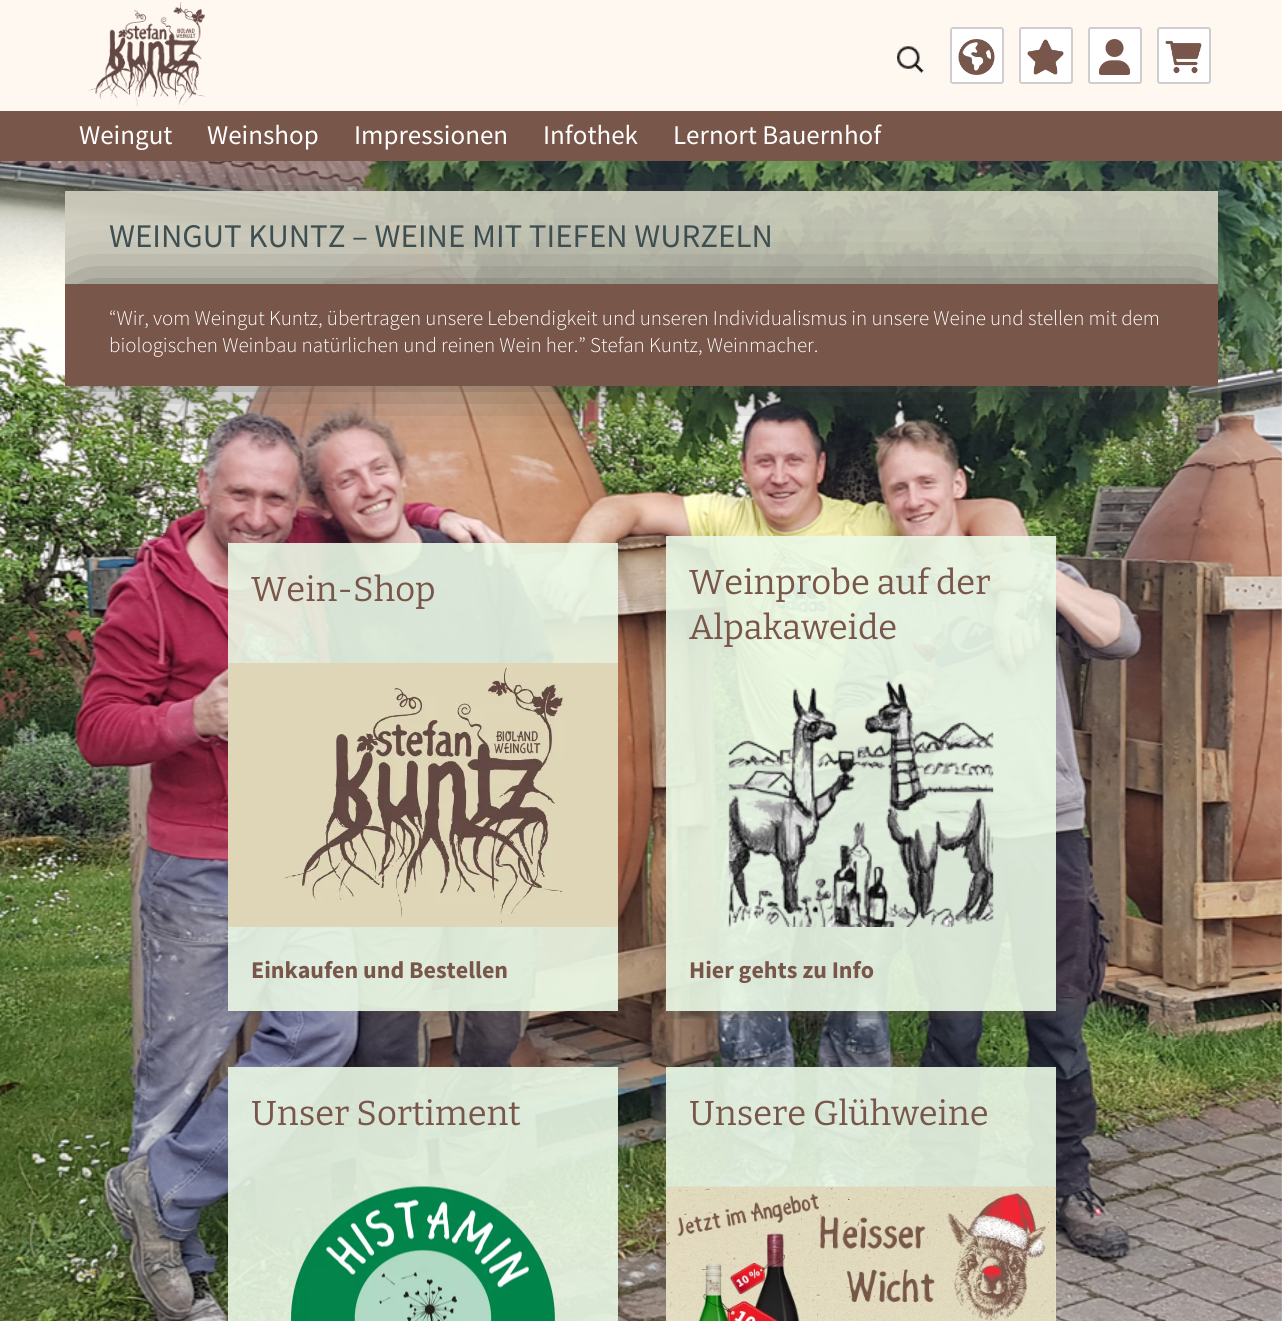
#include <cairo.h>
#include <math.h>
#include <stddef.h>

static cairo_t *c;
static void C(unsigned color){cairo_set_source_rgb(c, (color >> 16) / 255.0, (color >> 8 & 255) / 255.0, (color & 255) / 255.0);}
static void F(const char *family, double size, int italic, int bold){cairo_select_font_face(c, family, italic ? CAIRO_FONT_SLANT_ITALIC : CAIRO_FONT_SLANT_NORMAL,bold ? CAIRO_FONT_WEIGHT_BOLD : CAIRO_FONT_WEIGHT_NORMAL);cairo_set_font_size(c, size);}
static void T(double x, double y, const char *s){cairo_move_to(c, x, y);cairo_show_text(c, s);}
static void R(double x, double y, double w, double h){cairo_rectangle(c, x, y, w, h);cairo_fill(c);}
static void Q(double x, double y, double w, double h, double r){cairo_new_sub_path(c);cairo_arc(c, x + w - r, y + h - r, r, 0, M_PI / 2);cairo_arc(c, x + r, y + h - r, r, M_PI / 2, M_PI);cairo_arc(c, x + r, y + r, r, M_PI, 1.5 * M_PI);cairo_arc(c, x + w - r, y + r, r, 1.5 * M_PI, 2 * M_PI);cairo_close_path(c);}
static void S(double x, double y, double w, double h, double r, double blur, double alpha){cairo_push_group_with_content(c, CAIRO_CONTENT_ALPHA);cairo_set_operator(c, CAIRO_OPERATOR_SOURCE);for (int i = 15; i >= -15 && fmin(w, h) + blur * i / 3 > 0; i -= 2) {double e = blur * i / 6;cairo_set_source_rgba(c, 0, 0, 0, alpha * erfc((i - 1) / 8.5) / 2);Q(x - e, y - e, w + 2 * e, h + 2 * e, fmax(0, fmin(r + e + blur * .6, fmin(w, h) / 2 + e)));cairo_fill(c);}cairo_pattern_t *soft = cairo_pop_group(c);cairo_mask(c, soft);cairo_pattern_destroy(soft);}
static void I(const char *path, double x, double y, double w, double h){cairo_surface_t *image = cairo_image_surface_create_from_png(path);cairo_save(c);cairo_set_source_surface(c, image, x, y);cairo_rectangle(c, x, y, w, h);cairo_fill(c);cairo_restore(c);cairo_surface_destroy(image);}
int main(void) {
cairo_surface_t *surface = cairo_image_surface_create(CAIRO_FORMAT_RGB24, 1282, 1321);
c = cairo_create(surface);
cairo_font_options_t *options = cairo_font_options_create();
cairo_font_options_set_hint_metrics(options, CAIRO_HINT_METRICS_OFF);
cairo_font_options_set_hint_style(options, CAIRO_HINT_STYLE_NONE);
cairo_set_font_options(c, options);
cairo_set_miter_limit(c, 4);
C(0xffffff);
cairo_paint(c);
C(0xfff8f1);
R(0,0,1282,111);
I("1.png",88,1,118,108);
I("2.png",897,46,27,27);
C(0xffffff);
Q(951,28,52,55,2);
cairo_fill_preserve(c);
C(0xcecece);
cairo_stroke(c);
I("3.png",958,39,37,36);
C(0xffffff);
Q(1020,28,52,55,2);
cairo_fill_preserve(c);
C(0xcecece);
cairo_stroke(c);
I("4.png",1027,39,37,36);
C(0xffffff);
Q(1089,28,52,55,2);
cairo_fill_preserve(c);
C(0xcecece);
cairo_stroke(c);
I("5.png",1099,39,32,36);
C(0xffffff);
Q(1158,28,52,55,2);
cairo_fill_preserve(c);
C(0xcecece);
cairo_stroke(c);
I("6.png",1165,40,37,34);
C(0x79564a);
R(0,111,1282,50);
F("Source Sans Pro",27,0,0);
C(0xffffff);
T(79,144,"Weingut");
T(207,144,"Weinshop");
T(354,144,"Impressionen");
T(543,144,"Infothek");
T(673,144,"Lernort Bauernhof");
I("11.png",0,161,1282,1160);
cairo_save(c);
cairo_rectangle(c,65,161,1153,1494);
cairo_clip(c);
cairo_set_fill_rule(c,CAIRO_FILL_RULE_EVEN_ODD);
cairo_new_path(c);
cairo_move_to(c,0,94);
cairo_line_to(c,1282,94);
cairo_line_to(c,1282,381);
cairo_line_to(c,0,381);
cairo_close_path(c);
cairo_move_to(c,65,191);
cairo_line_to(c,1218,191);
cairo_line_to(c,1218,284);
cairo_line_to(c,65,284);
cairo_close_path(c);
cairo_clip(c);
C(0x494944);
S(77,203,1129,69,0,36,1);
cairo_restore(c);
cairo_set_source_rgba(c,0.816,0.812,0.753,0.9);
R(65,191,1153,93);
cairo_save(c);
cairo_rectangle(c,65,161,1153,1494);
cairo_clip(c);
C(0x494944);
S(77,296,1129,78,0,36,1);
cairo_restore(c);
F("Source Sans Pro",33,0,0);
C(0x3e4f51);
T(109,247,"WEINGUT KUNTZ – WEINE MIT TIEFEN WURZELN");
C(0x79564a);
R(65,284,1153,102);
F("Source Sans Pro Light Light",21,0,0);
C(0xffffff);
T(109,325,"“Wir, vom Weingut Kuntz, übertragen unsere Lebendigkeit und unseren Individualismus in unsere Weine und stellen mit dem");
T(109,352,"biologischen Weinbau natürlichen und reinen Wein her.” Stefan Kuntz, Weinmacher.");
cairo_set_source_rgba(c,0.918,0.976,0.902,0.9);
R(228,543,390,468);
F("Bitter Thin",34.5,0,0);
C(0x79564a);
T(251,601,"Wein-Shop");
I("7.png",228,663,390,264);
F("Source Sans Pro",24,0,1);
T(251,978,"Einkaufen und Bestellen");
cairo_save(c);
cairo_rectangle(c,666,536,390,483);
cairo_clip(c);
cairo_rectangle(c,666,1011,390,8);
cairo_clip(c);
C(0x494944);
S(678,548,366,451,0,33,1);
cairo_restore(c);
cairo_set_source_rgba(c,0.918,0.976,0.902,0.9);
R(666,536,390,475);
F("Bitter Thin",34.5,0,0);
C(0x79564a);
T(689,594,"Weinprobe auf der");
T(689,639,"Alpakaweide");
I("8.png",728,680,266,247);
F("Source Sans Pro",24,0,1);
T(689,978,"Hier gehts zu Info");
cairo_set_source_rgba(c,0.918,0.976,0.902,0.9);
R(228,1067,390,254);
F("Bitter Thin",34.5,0,0);
C(0x79564a);
T(251,1125,"Unser Sortiment");
I("9.png",291,1186,264,135);
cairo_set_source_rgba(c,0.918,0.976,0.902,0.9);
R(666,1067,390,120);
C(0x79564a);
T(689,1125,"Unsere Glühweine");
I("10.png",666,1186,390,135);
cairo_surface_write_to_png(surface, "o.png");
cairo_font_options_destroy(options);
cairo_destroy(c);
cairo_surface_destroy(surface);
return 0;
}
